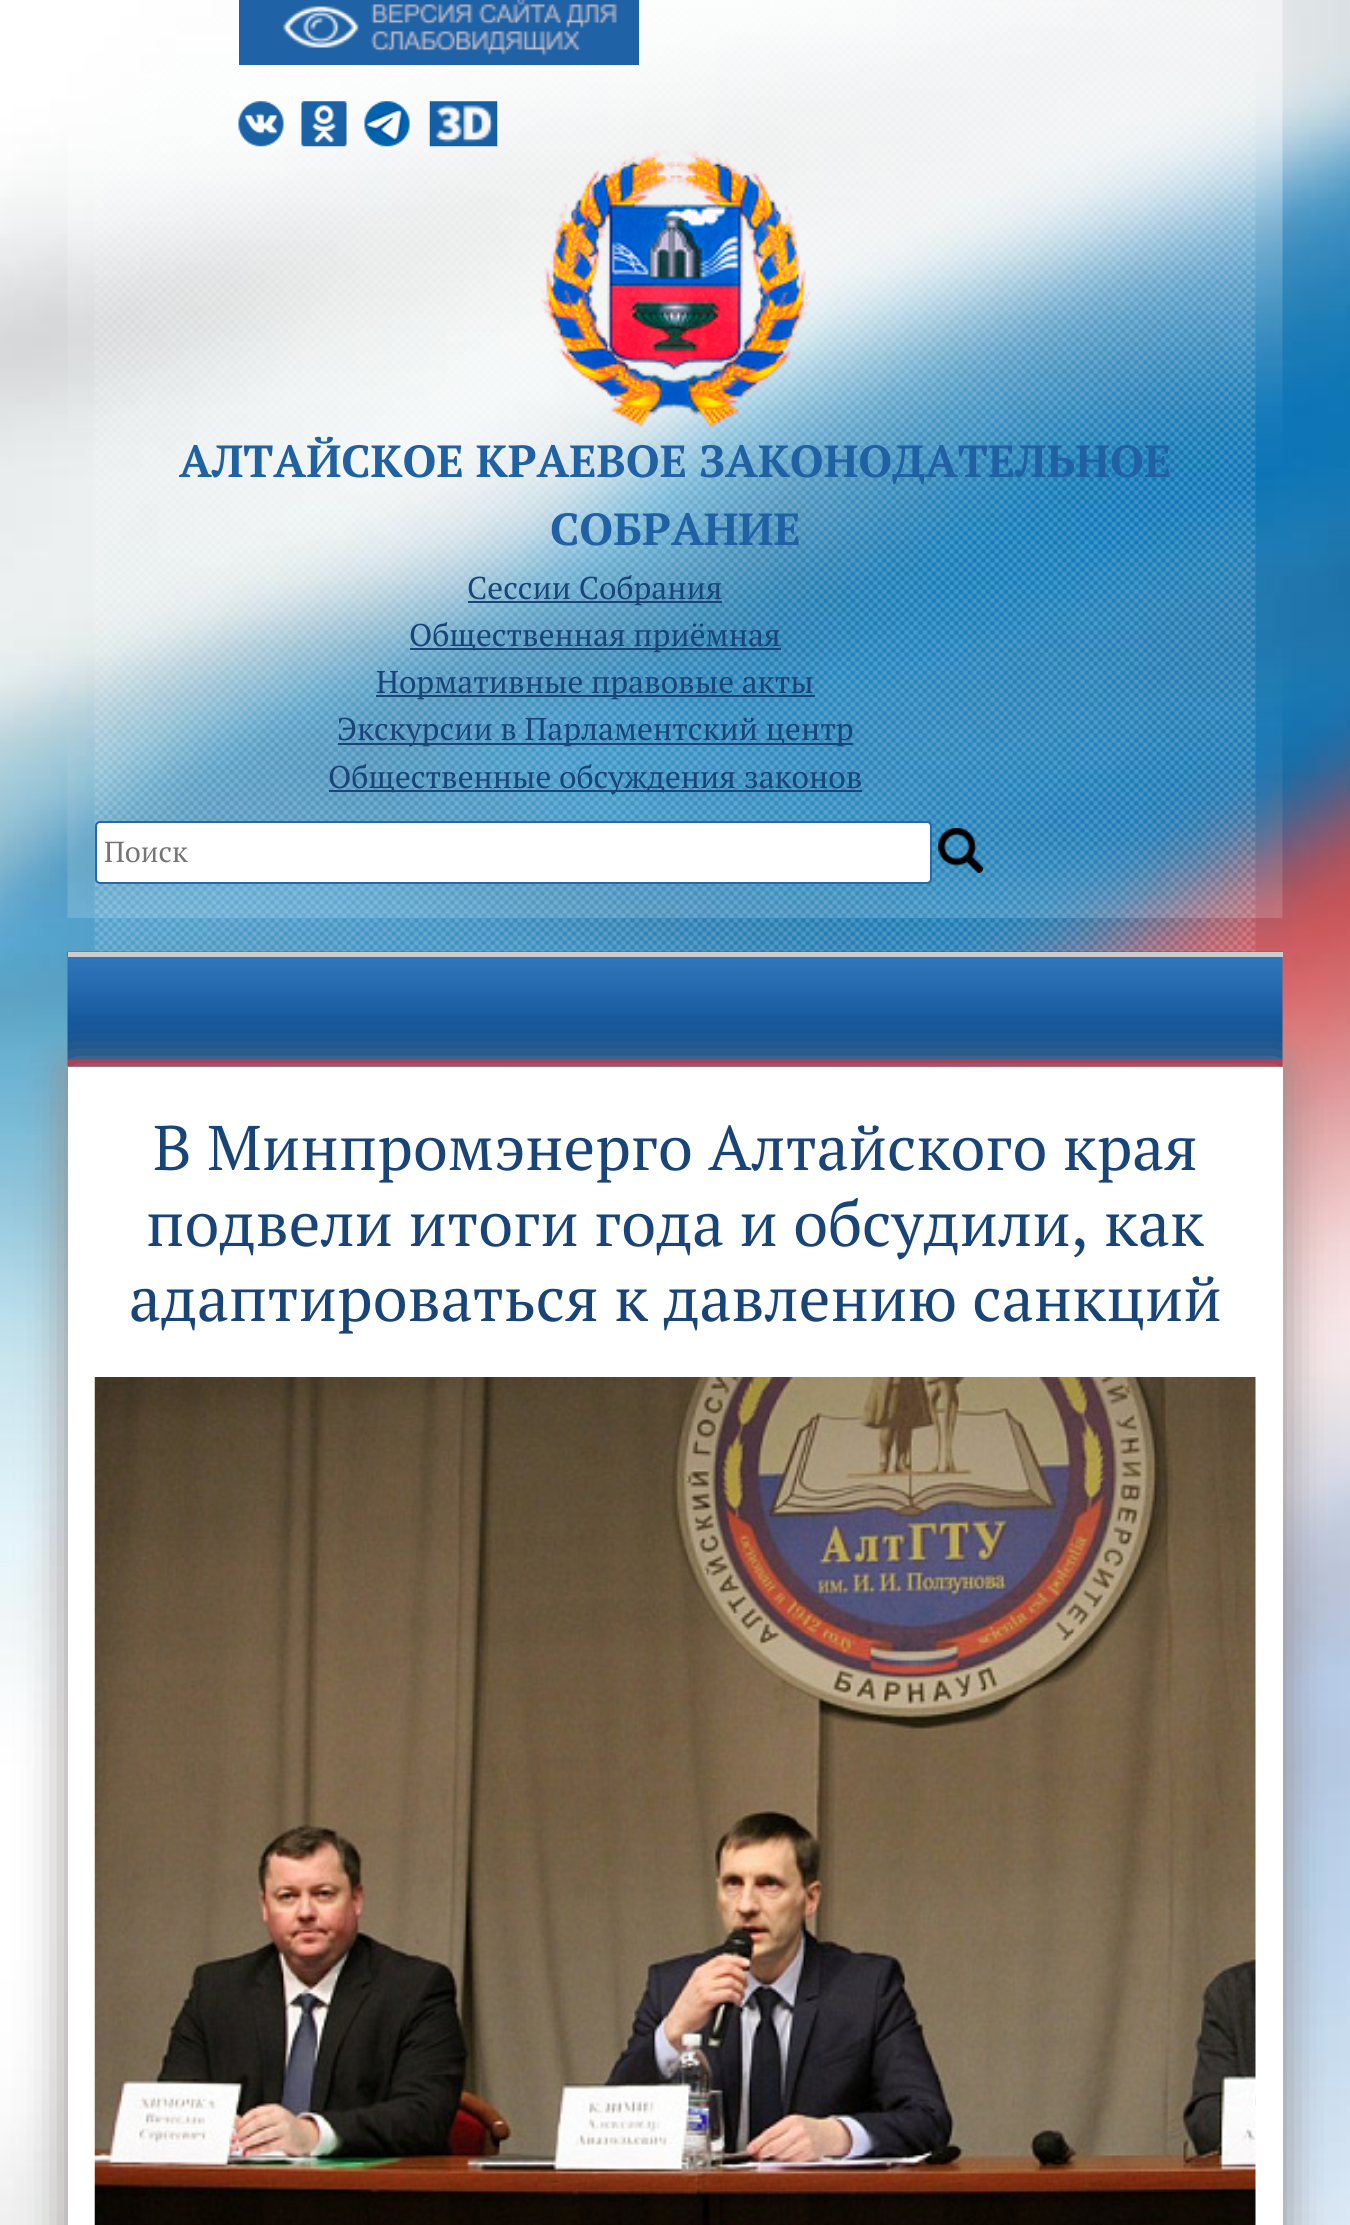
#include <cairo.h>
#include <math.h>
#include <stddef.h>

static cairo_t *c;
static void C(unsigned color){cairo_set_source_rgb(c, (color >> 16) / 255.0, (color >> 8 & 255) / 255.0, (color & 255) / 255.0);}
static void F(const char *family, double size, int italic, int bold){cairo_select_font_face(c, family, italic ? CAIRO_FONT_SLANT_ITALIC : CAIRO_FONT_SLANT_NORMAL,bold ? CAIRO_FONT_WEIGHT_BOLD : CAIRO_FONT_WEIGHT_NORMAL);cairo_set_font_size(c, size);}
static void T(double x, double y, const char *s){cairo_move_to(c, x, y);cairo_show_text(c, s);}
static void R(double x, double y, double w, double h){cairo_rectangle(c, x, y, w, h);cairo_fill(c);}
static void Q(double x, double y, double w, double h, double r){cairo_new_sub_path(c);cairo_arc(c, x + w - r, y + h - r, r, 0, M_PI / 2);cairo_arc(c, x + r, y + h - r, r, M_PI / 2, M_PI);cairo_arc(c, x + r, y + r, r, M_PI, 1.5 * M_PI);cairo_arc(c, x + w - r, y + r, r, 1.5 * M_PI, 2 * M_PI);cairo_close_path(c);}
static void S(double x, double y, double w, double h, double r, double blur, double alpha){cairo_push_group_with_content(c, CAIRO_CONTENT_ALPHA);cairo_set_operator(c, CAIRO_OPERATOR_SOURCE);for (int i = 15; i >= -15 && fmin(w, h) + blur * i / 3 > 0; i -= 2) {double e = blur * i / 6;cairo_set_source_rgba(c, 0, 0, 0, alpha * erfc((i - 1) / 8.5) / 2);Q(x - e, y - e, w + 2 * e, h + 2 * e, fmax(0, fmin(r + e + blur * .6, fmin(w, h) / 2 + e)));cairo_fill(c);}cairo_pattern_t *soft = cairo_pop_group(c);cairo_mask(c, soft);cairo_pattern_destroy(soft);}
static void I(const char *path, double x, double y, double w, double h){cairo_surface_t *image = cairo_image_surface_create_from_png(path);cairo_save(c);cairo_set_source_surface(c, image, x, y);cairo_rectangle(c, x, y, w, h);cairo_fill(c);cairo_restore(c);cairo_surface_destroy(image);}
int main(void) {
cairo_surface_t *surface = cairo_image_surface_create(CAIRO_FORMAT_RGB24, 1350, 2225);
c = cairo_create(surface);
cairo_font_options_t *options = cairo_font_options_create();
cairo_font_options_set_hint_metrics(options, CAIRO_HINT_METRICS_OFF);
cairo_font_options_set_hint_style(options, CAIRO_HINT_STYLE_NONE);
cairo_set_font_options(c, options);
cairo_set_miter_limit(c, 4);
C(0xffffff);
cairo_paint(c);
I("1.png",0,0,1350,2225);
I("2.png",94,1,1162,951);
I("3.png",67,0,1216,918);
C(0x1f62a5);
R(239,0,400,65);
I("4.png",283,0,334,57);
I("5.png",238,101,46,46);
I("6.png",301,101,46,46);
I("7.png",364,101,46,46);
I("8.png",429,101,69,46);
I("9.png",540,149,270,279);
F("PT Serif",45,0,1);
C(0x2061a4);
T(179,477,"АЛТАЙСКОЕ КРАЕВОЕ ЗАКОНОДАТЕЛЬНОЕ");
T(550,545,"CОБРАНИЕ");
C(0x184478);
R(468,601,254,2);
F("PT Serif",31.5,0,0);
T(467,599,"Сессии Собрания");
R(410,648,371,2);
T(409,646,"Общественная приёмная");
R(376,695,439,2);
T(376,693,"Нормативные правовые акты");
R(338,743,515,2);
T(337,740,"Экскурсии в Парламентский центр");
R(329,790,533,2);
T(328,788,"Общественные обсуждения законов");
C(0xffffff);
Q(96,822,835,61,4);
cairo_fill_preserve(c);
C(0x2667ae);
cairo_stroke(c);
F("PT Serif",29,0,0);
C(0x757575);
T(104,862,"Поиск");
I("10.png",938,828,46,45);
I("11.png",67,951,1216,116);
C(0xcdcdcd);
R(68,952,1215,5);
C(0x948d8d);
S(68,1067,1215,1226,0,22.5,1);
C(0xffffff);
R(68,1067,1215,1158);
F("PT Serif",63,0,0);
C(0x184478);
T(153,1170,"В Минпромэнерго Алтайского края");
T(146,1246,"подвели итоги года и обсудили, как");
T(129,1321,"адаптироваться к давлению санкций");
I("12.png",94,1377,1162,848);
cairo_surface_write_to_png(surface, "o.png");
cairo_font_options_destroy(options);
cairo_destroy(c);
cairo_surface_destroy(surface);
return 0;
}
